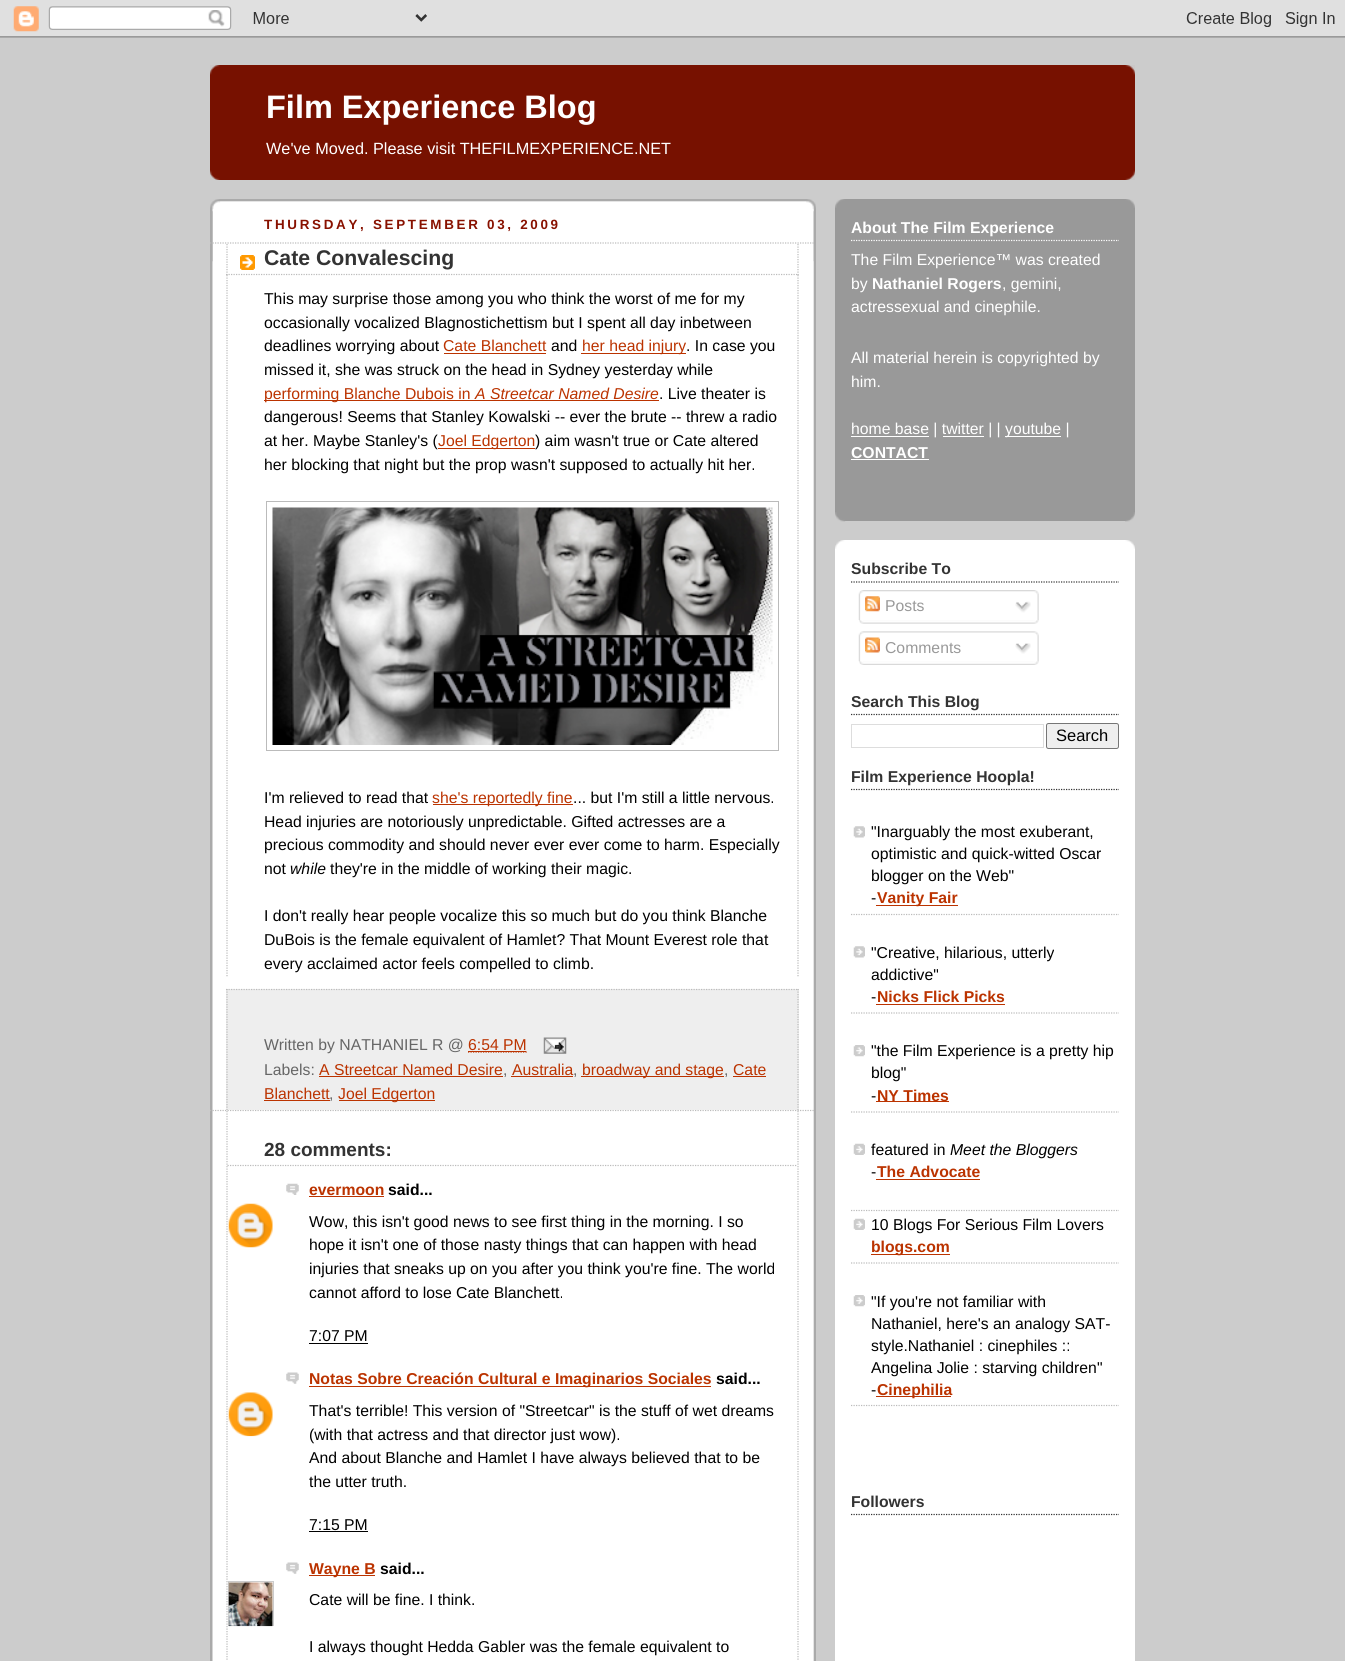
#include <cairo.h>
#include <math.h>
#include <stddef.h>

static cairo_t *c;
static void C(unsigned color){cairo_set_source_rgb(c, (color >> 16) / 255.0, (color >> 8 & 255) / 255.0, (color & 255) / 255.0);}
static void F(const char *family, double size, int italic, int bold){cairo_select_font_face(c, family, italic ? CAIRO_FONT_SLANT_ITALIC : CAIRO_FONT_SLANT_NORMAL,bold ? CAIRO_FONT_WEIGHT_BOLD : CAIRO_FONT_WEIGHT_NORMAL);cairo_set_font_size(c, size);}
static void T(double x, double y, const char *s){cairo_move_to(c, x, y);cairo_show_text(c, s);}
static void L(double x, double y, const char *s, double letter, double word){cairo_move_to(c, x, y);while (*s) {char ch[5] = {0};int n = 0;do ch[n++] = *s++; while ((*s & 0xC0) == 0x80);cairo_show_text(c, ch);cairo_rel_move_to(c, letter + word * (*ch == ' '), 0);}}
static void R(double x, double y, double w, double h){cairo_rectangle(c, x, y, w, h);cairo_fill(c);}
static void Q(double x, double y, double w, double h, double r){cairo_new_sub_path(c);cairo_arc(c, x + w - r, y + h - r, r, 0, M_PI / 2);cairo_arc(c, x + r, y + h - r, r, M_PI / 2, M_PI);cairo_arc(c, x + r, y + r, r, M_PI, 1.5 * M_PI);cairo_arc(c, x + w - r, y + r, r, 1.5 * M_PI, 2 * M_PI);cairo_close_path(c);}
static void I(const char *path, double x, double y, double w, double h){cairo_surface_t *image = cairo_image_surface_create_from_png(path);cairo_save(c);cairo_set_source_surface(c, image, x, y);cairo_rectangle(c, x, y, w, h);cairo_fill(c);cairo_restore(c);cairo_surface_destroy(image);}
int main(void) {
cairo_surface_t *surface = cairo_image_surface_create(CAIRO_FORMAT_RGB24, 1345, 1661);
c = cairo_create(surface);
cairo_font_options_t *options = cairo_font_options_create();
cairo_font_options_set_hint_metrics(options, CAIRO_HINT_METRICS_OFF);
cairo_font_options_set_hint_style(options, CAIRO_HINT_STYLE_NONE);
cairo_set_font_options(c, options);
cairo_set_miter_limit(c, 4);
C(0xcccccc);
cairo_paint(c);
I("1.png",0,0,1345,38);
C(0x771100);
R(210,65,925,115);
I("2.png",210,65,925,10);
I("3.png",210,170,925,10);
F("Liberation Sans",32.5,0,1);
C(0xffffff);
T(266,118,"Film Experience Blog");
F("Liberation Sans",16.25,0,0);
T(266,154,"We've Moved. Please visit THEFILMEXPERIENCE.NET");
R(212,201,602,1460);
I("4.png",210,199,606,63);
I("5.png",210,211,606,1450);
F("Liberation Sans",13.4,0,1);
C(0x881100);
L(264,229,"THURSDAY, SEPTEMBER 03, 2009",2.7,0);
cairo_new_path(c);
cairo_move_to(c,210,243);
cairo_line_to(c,815,243);
C(0xbbbbbb);
cairo_set_line_width(c,1.2);
cairo_set_dash(c,(double[]){1.25,1.25},2,0);
cairo_stroke(c);
cairo_new_path(c);
cairo_move_to(c,210,1110.5);
cairo_line_to(c,815,1110.5);
cairo_stroke(c);
I("6.png",240,255,15,15);
cairo_new_path(c);
cairo_move_to(c,798,244);
cairo_line_to(c,798,275);
cairo_stroke(c);
cairo_new_path(c);
cairo_move_to(c,226,274.5);
cairo_line_to(c,799,274.5);
cairo_stroke(c);
cairo_new_path(c);
cairo_move_to(c,227,244);
cairo_line_to(c,227,275);
cairo_stroke(c);
F("Liberation Sans",21.25,0,1);
C(0x333333);
T(264,265,"Cate Convalescing");
cairo_new_path(c);
cairo_move_to(c,798,275);
cairo_line_to(c,798,977.5);
C(0xbbbbbb);
cairo_stroke(c);
cairo_new_path(c);
cairo_move_to(c,227,275);
cairo_line_to(c,227,977.5);
cairo_stroke(c);
F("Liberation Sans",15.75,0,0);
C(0x000000);
T(264,304,"This may surprise those among you who think the worst of me for my");
T(264,328,"occasionally vocalized Blagnostichettism but I spent all day inbetween");
T(264,351,"deadlines worrying about");
C(0xbb3300);
T(443,351,"Cate Blanchett");
R(444,353,102,1);
C(0x000000);
T(551,351,"and");
C(0xbb3300);
R(581,353,105,1);
T(582,351,"her head injury");
C(0x000000);
T(686,351,". In case you");
T(264,375,"missed it, she was struck on the head in Sydney yesterday while");
C(0xbb3300);
R(264,400,395,1);
T(264,399,"performing Blanche Dubois in");
F("Liberation Sans",15.75,1,0);
T(475,399,"A Streetcar Named Desire");
F("Liberation Sans",15.75,0,0);
C(0x000000);
T(659,399,". Live theater is");
T(264,422,"dangerous! Seems that Stanley Kowalski -- ever the brute -- threw a radio");
T(264,446,"at her. Maybe Stanley's (");
C(0xbb3300);
R(438,448,97,1);
T(438,446,"Joel Edgerton");
C(0x000000);
T(535,446,") aim wasn't true or Cate altered");
T(264,470,"her blocking that night but the prop wasn't supposed to actually hit her.");
cairo_rectangle(c,266.5,501.5,512,249);
C(0xbbbbbb);
cairo_set_line_width(c,1);
cairo_set_dash(c,NULL,0,0);
cairo_stroke(c);
I("7.png",272,507,501,238);
C(0x000000);
T(264,803,"I'm relieved to read that");
C(0xbb3300);
R(433,804,140,1);
T(432,803,"she's reportedly fine");
C(0x000000);
T(573,803,"... but I'm still a little nervous.");
T(264,827,"Head injuries are notoriously unpredictable. Gifted actresses are a");
T(264,850,"precious commodity and should never ever ever come to harm. Especially");
T(264,874,"not");
F("Liberation Sans",15.75,1,0);
T(290,874,"while");
F("Liberation Sans",15.75,0,0);
T(330,874,"they're in the middle of working their magic.");
T(264,921,"I don't really hear people vocalize this so much but do you think Blanche");
T(264,945,"DuBois is the female equivalent of Hamlet? That Mount Everest role that");
T(264,969,"every acclaimed actor feels compelled to climb.");
C(0xeeeeee);
R(226,989,573,121);
cairo_new_path(c);
cairo_move_to(c,226,989.5);
cairo_line_to(c,799,989.5);
C(0xbbbbbb);
cairo_set_line_width(c,1.2);
cairo_set_dash(c,(double[]){1.25,1.25},2,0);
cairo_stroke(c);
cairo_new_path(c);
cairo_move_to(c,798,989);
cairo_line_to(c,798,1110);
cairo_stroke(c);
cairo_new_path(c);
cairo_move_to(c,227,989);
cairo_line_to(c,227,1110);
cairo_stroke(c);
C(0x666666);
T(264,1050,"Written by NATHANIEL R @");
C(0xbb3300);
T(468,1050,"6:54 PM");
cairo_new_path(c);
cairo_move_to(c,468,1052);
cairo_line_to(c,527,1052);
cairo_stroke(c);
R(468,1051,58,1);
I("8.png",543,1037,24,17);
C(0x666666);
T(264,1075,"Labels:");
C(0xbb3300);
T(319,1075,"A Streetcar Named Desire");
C(0x666666);
T(503,1075,",");
C(0xbb3300);
R(319,1076,184,1);
T(512,1075,"Australia");
C(0x666666);
T(573,1075,",");
C(0xbb3300);
R(511,1076,62,1);
R(581,1076,143,1);
T(582,1075,"broadway and stage");
C(0x666666);
T(724,1075,",");
C(0xbb3300);
R(733,1076,33,1);
T(733,1075,"Cate");
T(264,1099,"Blanchett");
C(0x666666);
T(329,1099,",");
C(0xbb3300);
R(264,1100,66,1);
R(339,1100,96,1);
T(338,1099,"Joel Edgerton");
cairo_new_path(c);
cairo_move_to(c,798,1111);
cairo_line_to(c,798,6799);
C(0xbbbbbb);
cairo_stroke(c);
cairo_new_path(c);
cairo_move_to(c,227,1111);
cairo_line_to(c,227,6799);
cairo_stroke(c);
cairo_new_path(c);
cairo_move_to(c,227.5,1165.5);
cairo_line_to(c,797.5,1165.5);
cairo_stroke(c);
F("Liberation Sans",19,0,1);
C(0x333333);
T(264,1156,"28 comments:");
I("9.png",286,1183,13,12);
F("Liberation Sans",15.75,0,1);
C(0xbb3300);
T(309,1195,"evermoon");
R(309,1196,75,1);
C(0x000000);
T(388,1195,"said...");
I("10.png",228,1203,45,45);
F("Liberation Sans",15.75,0,0);
T(309,1227,"Wow, this isn't good news to see first thing in the morning. I so");
T(309,1250,"hope it isn't one of those nasty things that can happen with head");
T(309,1274,"injuries that sneaks up on you after you think you're fine. The world");
T(309,1298,"cannot afford to lose Cate Blanchett.");
T(309,1341,"7:07 PM");
R(309,1343,59,1);
I("11.png",286,1372,13,12);
C(0xbb3300);
R(309,1386,402,1);
F("Liberation Sans",15.75,0,1);
T(309,1384,"Notas Sobre Creación Cultural e Imaginarios Sociales");
C(0x000000);
T(716,1384,"said...");
I("12.png",228,1392,45,45);
F("Liberation Sans",15.75,0,0);
T(309,1416,"That's terrible! This version of \"Streetcar\" is the stuff of wet dreams");
T(309,1440,"(with that actress and that director just wow).");
T(309,1463,"And about Blanche and Hamlet I have always believed that to be");
T(309,1487,"the utter truth.");
T(309,1530,"7:15 PM");
R(309,1531,59,1);
I("13.png",286,1562,13,12);
C(0xbb3300);
R(309,1575,66,1);
F("Liberation Sans",15.75,0,1);
T(309,1574,"Wayne B");
C(0x000000);
T(380,1574,"said...");
cairo_save(c);
cairo_rectangle(c,228,1581,46,45);
cairo_clip(c);
cairo_rectangle(c,228.5,1581.5,45,46);
C(0xcccccc);
cairo_set_line_width(c,1);
cairo_set_dash(c,NULL,0,0);
cairo_stroke(c);
cairo_restore(c);
I("14.png",228,1582,45,45);
F("Liberation Sans",15.75,0,0);
T(309,1605,"Cate will be fine. I think.");
T(309,1652,"I always thought Hedda Gabler was the female equivalent to");
C(0x999999);
R(835,199,300,322);
I("15.png",835,512,300,10);
I("16.png",835,199,300,9);
cairo_new_path(c);
cairo_move_to(c,851,240.5);
cairo_line_to(c,1119,240.5);
C(0xffffff);
cairo_stroke(c);
F("Liberation Sans",15.75,0,1);
T(851,233,"About The Film Experience");
F("Liberation Sans",15.75,0,0);
T(851,265,"The Film Experience™ was created");
T(851,289,"by");
F("Liberation Sans",15.75,0,1);
T(872,289,"Nathaniel Rogers");
F("Liberation Sans",15.75,0,0);
T(1002,289,", gemini,");
T(851,312,"actressexual and cinephile.");
T(851,363,"All material herein is copyrighted by");
T(851,387,"him.");
R(851,436,78,1);
T(851,434,"home base | twitter | |");
R(1005,436,56,1);
T(1005,434,"youtube |");
R(943,436,41,1);
F("Liberation Sans",15.75,0,1);
T(851,458,"CONTACT");
R(851,459,78,1);
R(835,540,300,1121);
I("17.png",835,540,300,9);
cairo_new_path(c);
cairo_move_to(c,851,582);
cairo_line_to(c,1119,582);
C(0x333333);
cairo_stroke(c);
T(851,574,"Subscribe To");
I("18.png",858,590,181,30);
I("19.png",865,596,15,16);
F("Liberation Sans",15.75,0,0);
C(0x999999);
T(885,611,"Posts");
I("20.png",1015,601,16,12);
I("21.png",859,620,180,4);
I("22.png",858,631,181,31);
I("23.png",865,637,15,16);
T(885,653,"Comments");
I("24.png",1015,643,16,11);
I("25.png",859,661,180,4);
cairo_new_path(c);
cairo_move_to(c,851,714.5);
cairo_line_to(c,1119,714.5);
C(0x333333);
cairo_stroke(c);
F("Liberation Sans",15.75,0,1);
T(851,707,"Search This Blog");
cairo_rectangle(c,851.5,724.5,192,23);
C(0xdddddd);
cairo_set_line_width(c,1);
cairo_set_dash(c,NULL,0,0);
cairo_stroke(c);
C(0xefefef);
Q(1046.5,723.5,72,25,2);
cairo_fill_preserve(c);
C(0x767676);
cairo_stroke(c);
F("Liberation Sans",16.5,0,0);
C(0x000000);
T(1056,741,"Search");
cairo_new_path(c);
cairo_move_to(c,851,789.5);
cairo_line_to(c,1119,789.5);
C(0x333333);
cairo_set_line_width(c,1.2);
cairo_set_dash(c,(double[]){1.25,1.25},2,0);
cairo_stroke(c);
F("Liberation Sans",15.75,0,1);
T(851,782,"Film Experience Hoopla!");
I("26.png",853,826,12,12);
cairo_new_path(c);
cairo_move_to(c,851,914.5);
cairo_line_to(c,1119,914.5);
C(0xbbbbbb);
cairo_stroke(c);
F("Liberation Sans",15.75,0,0);
C(0x000000);
T(871,837,"\"Inarguably the most exuberant,");
T(871,859,"optimistic and quick-witted Oscar");
T(871,881,"blogger on the Web\"");
T(871,903,"-");
C(0xbb3300);
R(876,905,82,1);
F("Liberation Sans",15.75,0,1);
T(877,903,"Vanity Fair");
I("26.png",853,946,12,12);
cairo_new_path(c);
cairo_move_to(c,851,1013);
cairo_line_to(c,1119,1013);
C(0xbbbbbb);
cairo_stroke(c);
F("Liberation Sans",15.75,0,0);
C(0x000000);
T(871,958,"\"Creative, hilarious, utterly");
T(871,980,"addictive\"");
T(871,1002,"-");
F("Liberation Sans",15.75,0,1);
C(0xbb3300);
T(877,1002,"Nicks Flick Picks");
R(876,1004,129,1);
I("27.png",853,1045,12,12);
cairo_new_path(c);
cairo_move_to(c,851,1112);
cairo_line_to(c,1119,1112);
C(0xbbbbbb);
cairo_stroke(c);
F("Liberation Sans",15.75,0,0);
C(0x000000);
T(871,1056,"\"the Film Experience is a pretty hip");
T(871,1078,"blog\"");
T(871,1101,"-");
C(0xbb3300);
R(876,1101,73,1);
F("Liberation Sans",15.75,0,1);
T(877,1101,"NY Times");
I("28.png",853,1143,12,12);
cairo_new_path(c);
cairo_move_to(c,851,1210.5);
cairo_line_to(c,1119,1210.5);
C(0xbbbbbb);
cairo_stroke(c);
F("Liberation Sans",15.75,0,0);
C(0x000000);
T(871,1155,"featured in");
F("Liberation Sans",15.75,1,0);
T(950,1155,"Meet the Bloggers");
F("Liberation Sans",15.75,0,0);
T(871,1177,"-");
F("Liberation Sans",15.75,0,1);
C(0xbb3300);
T(877,1177,"The Advocate");
R(876,1179,104,1);
I("28.png",853,1218,12,12);
cairo_new_path(c);
cairo_move_to(c,851,1263);
cairo_line_to(c,1119,1263);
C(0xbbbbbb);
cairo_stroke(c);
F("Liberation Sans",15.75,0,0);
C(0x000000);
T(871,1230,"10 Blogs For Serious Film Lovers");
C(0xbb3300);
R(871,1254,79,1);
F("Liberation Sans",15.75,0,1);
T(871,1252,"blogs.com");
I("27.png",853,1295,12,12);
cairo_new_path(c);
cairo_move_to(c,851,1405.5);
cairo_line_to(c,1119,1405.5);
C(0xbbbbbb);
cairo_stroke(c);
F("Liberation Sans",15.75,0,0);
C(0x000000);
T(871,1307,"\"If you're not familiar with");
T(871,1329,"Nathaniel, here's an analogy SAT-");
T(871,1351,"style.Nathaniel : cinephiles ::");
T(871,1373,"Angelina Jolie : starving children\"");
T(871,1395,"-");
C(0xbb3300);
R(876,1396,75,1);
F("Liberation Sans",15.75,0,1);
T(877,1395,"Cinephilia");
cairo_new_path(c);
cairo_move_to(c,851,1514.5);
cairo_line_to(c,1119,1514.5);
C(0x333333);
cairo_stroke(c);
T(851,1507,"Followers");
cairo_surface_write_to_png(surface, "o.png");
cairo_font_options_destroy(options);
cairo_destroy(c);
cairo_surface_destroy(surface);
return 0;
}
